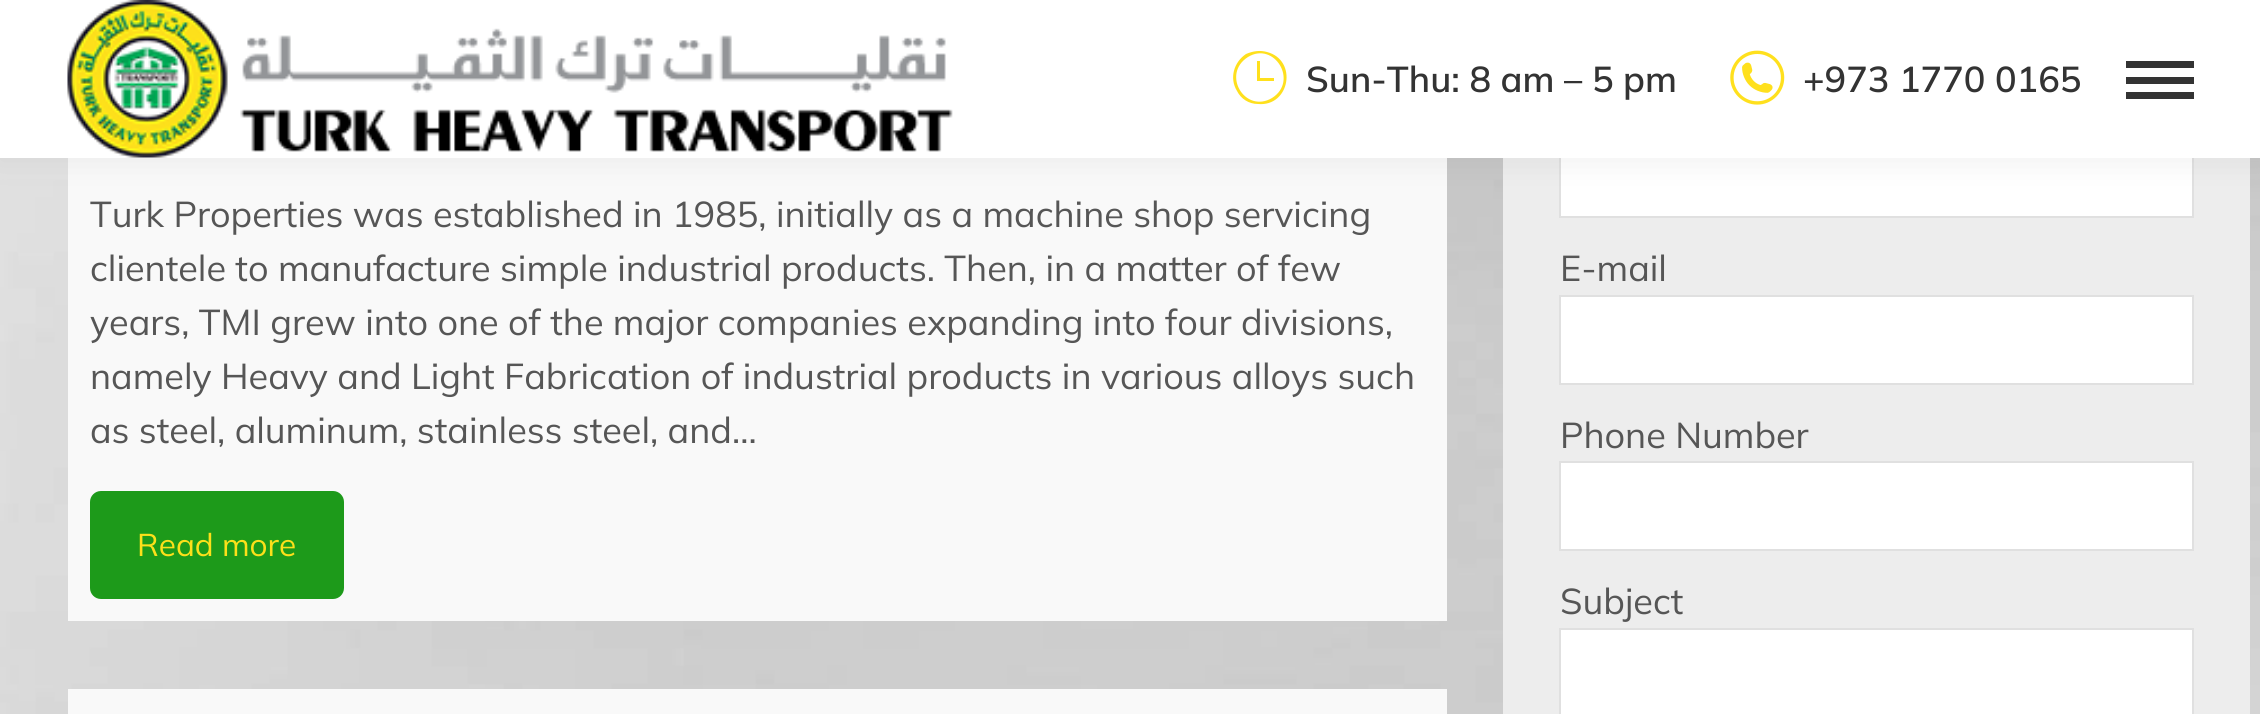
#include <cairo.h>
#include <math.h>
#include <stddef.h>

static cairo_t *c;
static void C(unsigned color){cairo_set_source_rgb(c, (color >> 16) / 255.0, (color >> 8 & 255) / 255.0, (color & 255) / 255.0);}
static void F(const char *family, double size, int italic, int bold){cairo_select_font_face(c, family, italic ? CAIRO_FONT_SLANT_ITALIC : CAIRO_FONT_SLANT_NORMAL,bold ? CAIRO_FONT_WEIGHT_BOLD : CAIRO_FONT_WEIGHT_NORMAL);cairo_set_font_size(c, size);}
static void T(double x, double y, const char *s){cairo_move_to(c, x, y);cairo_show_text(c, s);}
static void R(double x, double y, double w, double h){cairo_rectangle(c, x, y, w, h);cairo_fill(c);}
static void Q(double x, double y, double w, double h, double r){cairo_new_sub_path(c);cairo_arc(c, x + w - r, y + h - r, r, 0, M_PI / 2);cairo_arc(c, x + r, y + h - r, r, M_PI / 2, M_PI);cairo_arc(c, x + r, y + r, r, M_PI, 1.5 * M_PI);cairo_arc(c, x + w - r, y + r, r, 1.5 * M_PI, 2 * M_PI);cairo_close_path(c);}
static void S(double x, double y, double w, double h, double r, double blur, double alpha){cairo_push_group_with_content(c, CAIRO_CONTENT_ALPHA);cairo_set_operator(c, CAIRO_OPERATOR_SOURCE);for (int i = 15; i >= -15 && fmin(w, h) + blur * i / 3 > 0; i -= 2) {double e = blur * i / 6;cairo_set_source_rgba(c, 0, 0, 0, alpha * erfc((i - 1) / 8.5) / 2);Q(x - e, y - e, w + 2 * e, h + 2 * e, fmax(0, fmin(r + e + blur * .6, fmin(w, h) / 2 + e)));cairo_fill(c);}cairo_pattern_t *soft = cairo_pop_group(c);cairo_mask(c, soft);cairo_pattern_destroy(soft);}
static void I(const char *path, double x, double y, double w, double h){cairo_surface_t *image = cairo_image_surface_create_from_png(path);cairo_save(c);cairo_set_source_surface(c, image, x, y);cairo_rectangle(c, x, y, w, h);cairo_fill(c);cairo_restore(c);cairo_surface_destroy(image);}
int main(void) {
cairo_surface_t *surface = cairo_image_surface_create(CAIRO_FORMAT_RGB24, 2260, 714);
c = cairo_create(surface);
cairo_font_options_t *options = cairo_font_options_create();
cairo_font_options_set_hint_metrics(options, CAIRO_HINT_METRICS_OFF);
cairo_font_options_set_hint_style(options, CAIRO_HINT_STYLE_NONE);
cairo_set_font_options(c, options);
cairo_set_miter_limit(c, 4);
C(0xffffff);
cairo_paint(c);
I("1.png",0,158,2260,556);
C(0xf9f9f9);
R(68,158,1379,463);
C(0xededed);
R(1503,158,747,556);
C(0xffffff);
R(1561,158,631,58);
cairo_rectangle(c,1560,129,633,88);
C(0xe0e0e0);
cairo_stroke(c);
C(0x000000);
S(-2,-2,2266,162,0,17,.07);
C(0xffffff);
R(0,0,2260,158);
I("2.png",67,0,886,158);
C(0xffe01d);
cairo_new_path(c);
cairo_move_to(c,1246,54);
cairo_curve_to(c,1234,62,1229,78,1237,91);
cairo_curve_to(c,1241,99,1249,104,1258,104);
cairo_curve_to(c,1290,107,1298,60,1267,52);
cairo_curve_to(c,1260,50,1253,51,1246,54);
cairo_close_path(c);
cairo_move_to(c,1272,98);
cairo_curve_to(c,1245,114,1221,74,1248,57);
cairo_curve_to(c,1274,41,1299,81,1272,98);
cairo_close_path(c);
cairo_move_to(c,1260,78);
cairo_line_to(c,1260,61);
cairo_line_to(c,1257,61);
cairo_line_to(c,1257,81);
cairo_line_to(c,1274,81);
cairo_line_to(c,1274,78);
cairo_close_path(c);
cairo_fill(c);
F("Mulish SemiBold",36,0,0);
C(0x333333);
T(1306,92,"Sun-Thu: 8 am – 5 pm");
I("3.png",1730,50,55,55);
T(1803,92,"+973 1770 0165");
R(2126,61,68,7);
R(2126,77,68,7);
R(2126,92,68,7);
F("Mulish",36,0,0);
C(0x565656);
T(90,227,"Turk Properties was established in 1985, initially as a machine shop servicing");
T(90,281,"clientele to manufacture simple industrial products. Then, in a matter of few");
T(90,335,"years, TMI grew into one of the major companies expanding into four divisions,");
T(90,389,"namely Heavy and Light Fabrication of industrial products in various alloys such");
T(90,443,"as steel, aluminum, stainless steel, and…");
C(0x1d9a1a);
Q(90,491,254,108,11);
cairo_fill(c);
F("Mulish",31.5,0,0);
C(0xfce01a);
T(137,556,"Read more");
C(0xf9f9f9);
R(68,689,1379,25);
F("Mulish",36,0,0);
C(0x565656);
T(1560,281,"E-mail");
C(0xffffff);
cairo_rectangle(c,1560,296,633,88);
cairo_fill_preserve(c);
C(0xe0e0e0);
cairo_stroke(c);
C(0x565656);
T(1560,448,"Phone Number");
C(0xffffff);
cairo_rectangle(c,1560,462,633,88);
cairo_fill_preserve(c);
C(0xe0e0e0);
cairo_stroke(c);
C(0x565656);
T(1560,614,"Subject");
C(0xffffff);
cairo_rectangle(c,1560,629,633,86);
cairo_fill_preserve(c);
C(0xe0e0e0);
cairo_stroke(c);
cairo_surface_write_to_png(surface, "o.png");
cairo_font_options_destroy(options);
cairo_destroy(c);
cairo_surface_destroy(surface);
return 0;
}
